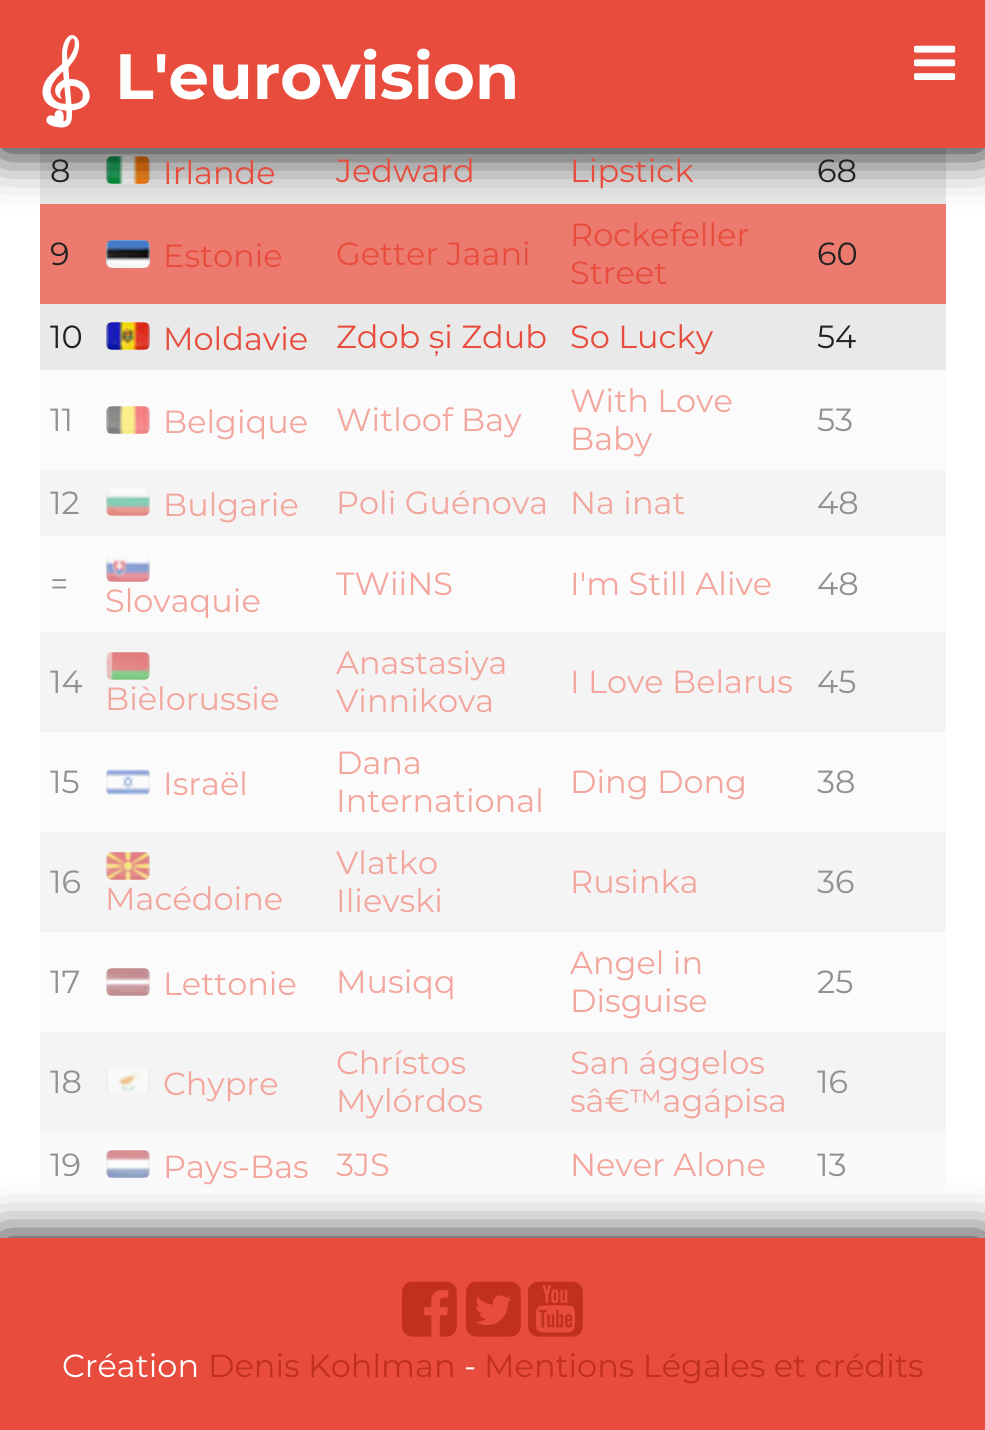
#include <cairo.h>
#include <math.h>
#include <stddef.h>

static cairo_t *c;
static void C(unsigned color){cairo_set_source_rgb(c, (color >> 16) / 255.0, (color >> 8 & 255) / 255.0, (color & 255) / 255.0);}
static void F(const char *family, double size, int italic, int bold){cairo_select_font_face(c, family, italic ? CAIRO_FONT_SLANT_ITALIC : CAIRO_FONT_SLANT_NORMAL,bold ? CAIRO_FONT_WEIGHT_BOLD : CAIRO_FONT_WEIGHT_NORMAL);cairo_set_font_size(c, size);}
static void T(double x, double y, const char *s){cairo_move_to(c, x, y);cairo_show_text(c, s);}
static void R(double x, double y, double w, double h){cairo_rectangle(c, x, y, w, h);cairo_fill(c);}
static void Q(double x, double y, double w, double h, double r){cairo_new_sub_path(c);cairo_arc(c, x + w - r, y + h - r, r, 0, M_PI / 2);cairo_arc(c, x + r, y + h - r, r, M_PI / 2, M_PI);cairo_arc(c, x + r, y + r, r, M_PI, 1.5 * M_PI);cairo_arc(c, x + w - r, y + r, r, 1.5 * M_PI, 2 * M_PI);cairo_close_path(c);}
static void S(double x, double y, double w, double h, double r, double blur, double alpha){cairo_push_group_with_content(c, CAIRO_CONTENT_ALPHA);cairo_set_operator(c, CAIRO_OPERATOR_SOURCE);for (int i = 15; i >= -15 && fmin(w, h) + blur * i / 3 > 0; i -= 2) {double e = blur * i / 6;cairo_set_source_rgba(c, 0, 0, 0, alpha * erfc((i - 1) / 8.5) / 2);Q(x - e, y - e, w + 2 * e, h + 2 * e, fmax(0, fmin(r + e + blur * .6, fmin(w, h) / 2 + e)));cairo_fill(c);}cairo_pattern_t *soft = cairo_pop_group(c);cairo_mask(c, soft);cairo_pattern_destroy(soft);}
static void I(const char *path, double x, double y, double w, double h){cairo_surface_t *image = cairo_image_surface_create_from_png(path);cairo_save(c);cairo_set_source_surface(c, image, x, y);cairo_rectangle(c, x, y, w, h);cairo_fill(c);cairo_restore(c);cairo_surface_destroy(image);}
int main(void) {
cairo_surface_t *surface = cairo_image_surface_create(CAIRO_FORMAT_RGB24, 985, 1430);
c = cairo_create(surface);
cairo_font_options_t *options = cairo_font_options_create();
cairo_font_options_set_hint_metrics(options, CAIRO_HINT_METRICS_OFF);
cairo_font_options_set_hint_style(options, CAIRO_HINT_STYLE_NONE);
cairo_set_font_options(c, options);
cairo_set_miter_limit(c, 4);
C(0xffffff);
cairo_paint(c);
C(0xe9e9e9);
R(40,148,906,56);
I("3.png",106,156,44,28);
C(0xed7a6e);
R(40,204,906,100);
C(0x000000);
S(0,2,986,148,0,25,1);
C(0xe74c3c);
R(0,0,985,148);
I("1.png",42,35,48,93);
F("Montserrat",64,0,1);
C(0xffffff);
T(115,99,"L'eurovision");
I("2.png",914,45,42,35);
F("Montserrat",32,0,0);
C(0x222222);
T(50,182,"8");
C(0xe74c3c);
T(163,184,"Irlande");
T(336,182,"Jedward");
T(570,182,"Lipstick");
C(0x222222);
T(817,182,"68");
T(50,265,"9");
I("4.png",106,240,44,28);
C(0xe74c3c);
T(163,267,"Estonie");
T(336,265,"Getter Jaani");
T(570,246,"Rockefeller");
T(570,284,"Street");
C(0x222222);
T(817,265,"60");
C(0xe9e9e9);
R(40,304,906,66);
C(0x222222);
T(50,348,"10");
I("5.png",106,322,44,28);
C(0xe74c3c);
T(163,350,"Moldavie");
T(336,348,"Zdob și Zdub");
T(570,348,"So Lucky");
C(0x222222);
T(817,348,"54");
C(0xfbfbfb);
R(40,370,906,100);
C(0x919191);
T(50,431,"11");
I("6.png",106,406,44,28);
C(0xf3a69e);
T(163,433,"Belgique");
T(336,431,"Witloof Bay");
T(570,412,"With Love");
T(570,450,"Baby");
C(0x919191);
T(817,431,"53");
C(0xf4f4f4);
R(40,470,906,66);
C(0x919191);
T(50,514,"12");
I("7.png",106,488,44,28);
C(0xf3a69e);
T(163,516,"Bulgarie");
T(336,514,"Poli Guénova");
T(570,514,"Na inat");
C(0x919191);
T(817,514,"48");
C(0xfbfbfb);
R(40,536,906,96);
C(0x919191);
T(50,595,"=");
C(0xf3a69e);
T(336,595,"TWiiNS");
T(570,595,"I'm Still Alive");
C(0x919191);
T(817,595,"48");
I("8.png",106,556,44,26);
C(0xf3a69e);
T(105,612,"Slovaquie");
C(0xf4f4f4);
R(40,632,906,100);
C(0x919191);
T(50,693,"14");
C(0xf3a69e);
T(336,674,"Anastasiya");
T(336,712,"Vinnikova");
T(570,693,"I Love Belarus");
C(0x919191);
T(817,693,"45");
I("9.png",106,652,44,28);
C(0xf3a69e);
T(105,710,"Bièlorussie");
C(0xfbfbfb);
R(40,732,906,100);
C(0x919191);
T(50,793,"15");
I("10.png",106,768,44,28);
C(0xf3a69e);
T(163,795,"Israël");
T(336,774,"Dana");
T(336,812,"International");
T(570,793,"Ding Dong");
C(0x919191);
T(817,793,"38");
C(0xf4f4f4);
R(40,832,906,100);
C(0x919191);
T(50,893,"16");
C(0xf3a69e);
T(336,874,"Vlatko");
T(336,912,"Ilievski");
T(570,893,"Rusinka");
C(0x919191);
T(817,893,"36");
I("11.png",106,852,44,28);
C(0xf3a69e);
T(105,910,"Macédoine");
C(0xfbfbfb);
R(40,932,906,100);
C(0x919191);
T(50,993,"17");
I("12.png",106,968,44,28);
C(0xf3a69e);
T(163,995,"Lettonie");
T(336,993,"Musiqq");
T(570,974,"Angel in");
T(570,1012,"Disguise");
C(0x919191);
T(817,993,"25");
C(0xf4f4f4);
R(40,1032,906,100);
C(0x919191);
T(50,1093,"18");
I("13.png",106,1068,44,26);
C(0xf3a69e);
T(163,1095,"Chypre");
T(336,1074,"Chrístos");
T(336,1112,"Mylórdos");
T(570,1074,"San ággelos");
T(570,1112,"sâ€™agápisa");
C(0x919191);
T(817,1093,"16");
C(0x000000);
S(0,1240,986,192,0,25,1);
cairo_set_source_rgba(c,0.965,0.965,0.965,0.5);
R(40,1132,906,54);
C(0x919191);
T(50,1176,"19");
I("14.png",106,1150,44,28);
C(0xf3a69e);
T(163,1178,"Pays-Bas");
T(336,1176,"3JS");
T(570,1176,"Never Alone");
C(0x919191);
T(817,1176,"13");
C(0xe74c3c);
R(0,1238,985,192);
I("15.png",402,1281,55,56);
I("16.png",466,1281,55,56);
I("17.png",528,1281,55,56);
C(0xffffff);
T(62,1377,"Création");
C(0xc12f1f);
T(208,1377,"Denis Kohlman");
C(0xffffff);
T(464,1377,"-");
C(0xc12f1f);
T(484,1377,"Mentions Légales et crédits");
cairo_surface_write_to_png(surface, "o.png");
cairo_font_options_destroy(options);
cairo_destroy(c);
cairo_surface_destroy(surface);
return 0;
}
